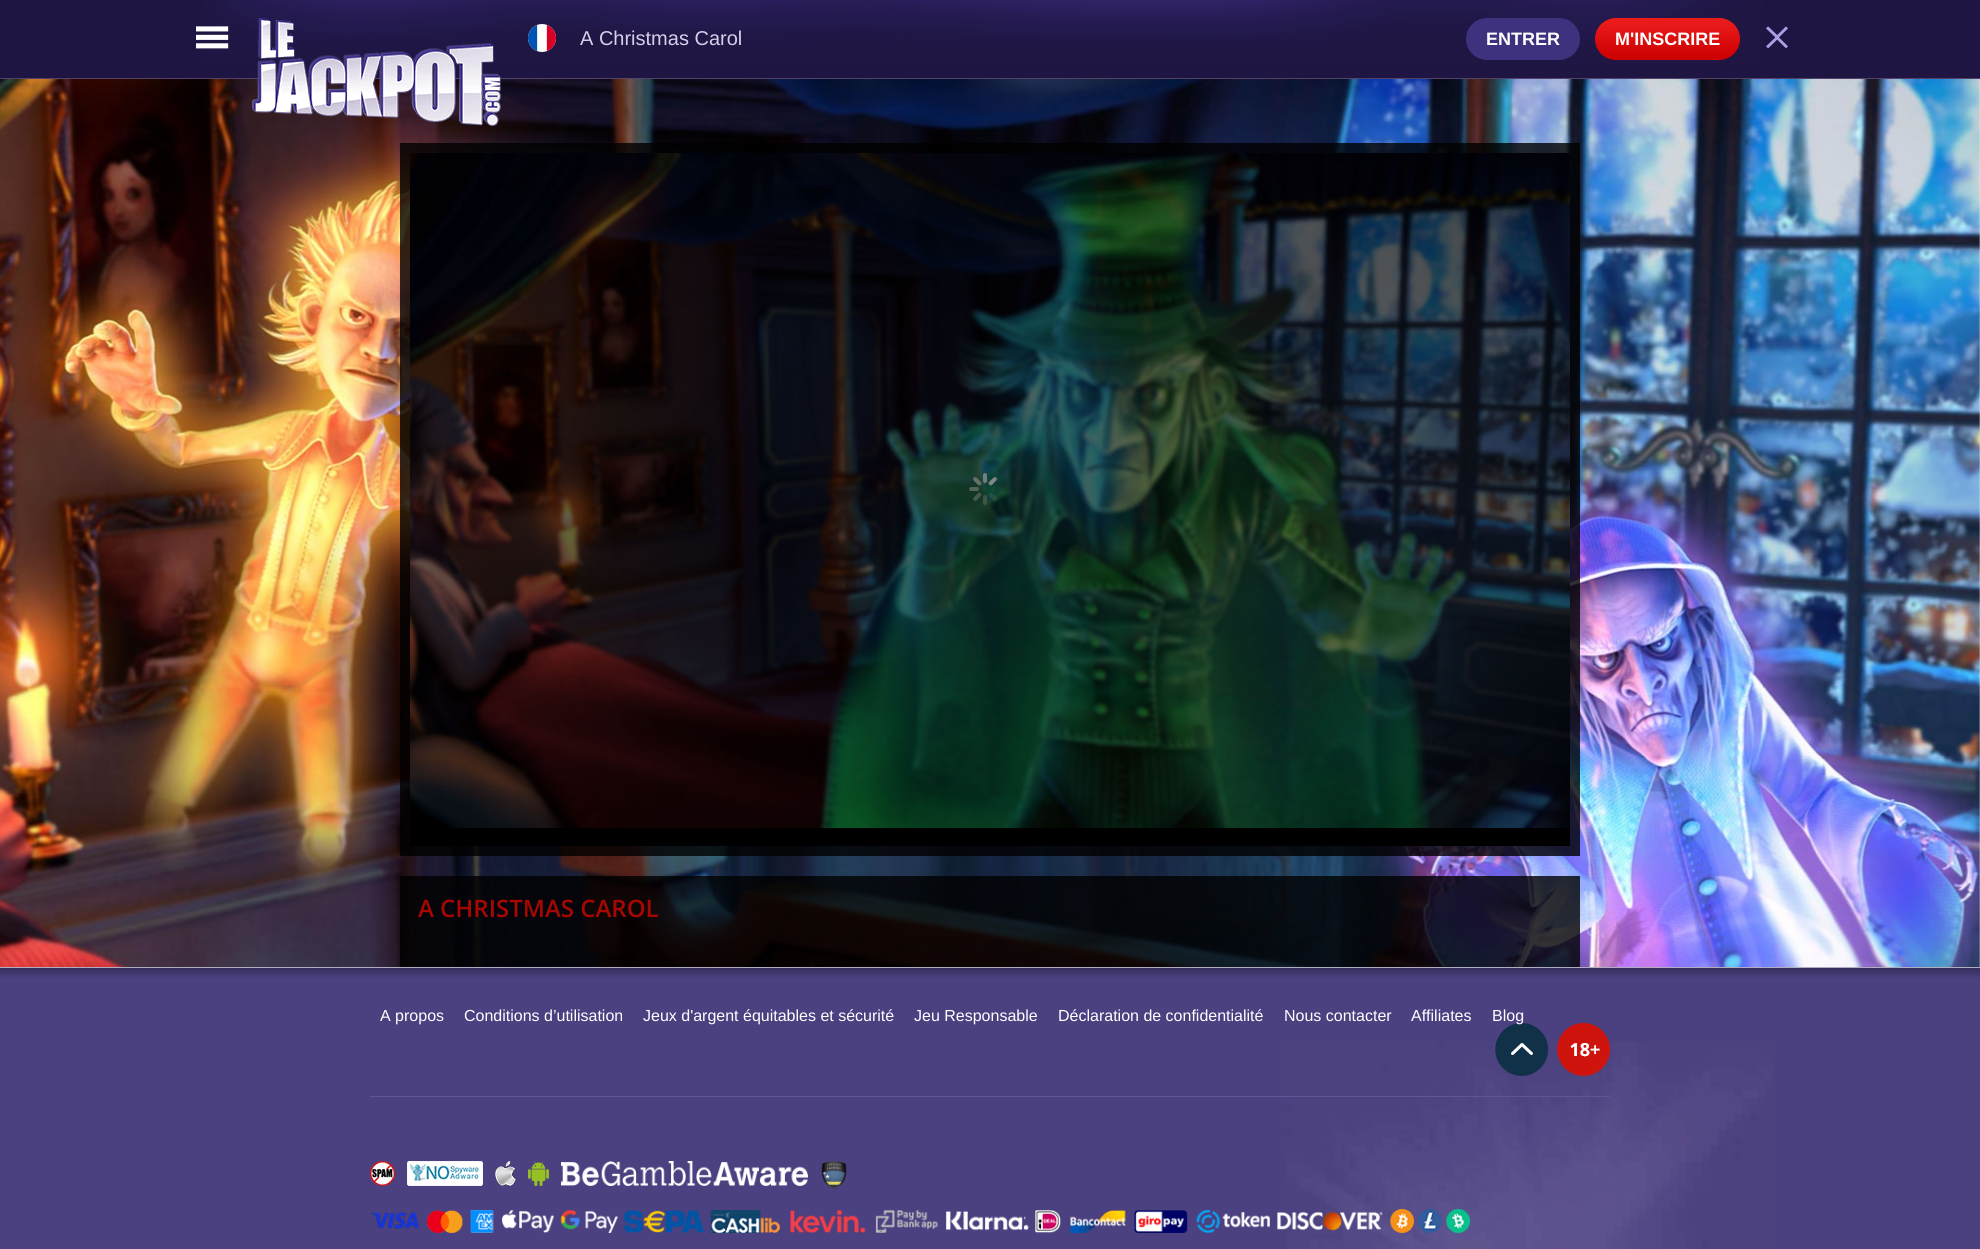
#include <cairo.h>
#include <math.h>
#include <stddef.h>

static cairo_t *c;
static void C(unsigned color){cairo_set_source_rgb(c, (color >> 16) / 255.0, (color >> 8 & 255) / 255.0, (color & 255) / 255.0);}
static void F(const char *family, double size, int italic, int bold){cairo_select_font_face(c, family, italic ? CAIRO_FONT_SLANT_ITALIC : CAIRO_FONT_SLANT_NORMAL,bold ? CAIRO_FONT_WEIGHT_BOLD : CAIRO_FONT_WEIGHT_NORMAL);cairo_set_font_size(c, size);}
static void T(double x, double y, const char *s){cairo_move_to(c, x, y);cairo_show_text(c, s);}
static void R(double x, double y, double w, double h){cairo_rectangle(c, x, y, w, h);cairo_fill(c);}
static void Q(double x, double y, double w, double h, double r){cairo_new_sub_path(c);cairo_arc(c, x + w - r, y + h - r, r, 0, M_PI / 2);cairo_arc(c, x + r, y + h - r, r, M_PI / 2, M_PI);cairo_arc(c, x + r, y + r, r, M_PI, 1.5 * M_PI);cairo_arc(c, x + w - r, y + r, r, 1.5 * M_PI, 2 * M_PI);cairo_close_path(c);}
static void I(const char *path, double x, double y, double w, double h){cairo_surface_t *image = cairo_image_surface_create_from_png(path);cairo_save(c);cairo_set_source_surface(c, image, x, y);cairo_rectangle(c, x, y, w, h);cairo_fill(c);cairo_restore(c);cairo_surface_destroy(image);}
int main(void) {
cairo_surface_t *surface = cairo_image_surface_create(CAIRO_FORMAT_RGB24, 1980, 1249);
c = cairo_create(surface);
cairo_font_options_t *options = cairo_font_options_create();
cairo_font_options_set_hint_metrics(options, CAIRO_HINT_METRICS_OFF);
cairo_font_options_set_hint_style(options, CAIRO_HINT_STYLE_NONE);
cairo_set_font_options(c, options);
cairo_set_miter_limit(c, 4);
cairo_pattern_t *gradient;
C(0xffffff);
cairo_paint(c);
I("1.png",0,79,1980,888);
C(0x1e1543);
R(0,0,1980,78);
I("3.png",202,0,1561,66);
F("Liberation Sans",20,0,0);
C(0xd5cfeb);
T(580,45,"A Christmas Carol");
I("2.png",1766,26,22,23);
C(0x534167);
R(0,78,1980,1);
I("4.png",252,17,249,109);
I("5.png",196,26,33,23);
I("6.png",528,24,28,28);
C(0x3e317d);
Q(1466,18,114,42,21);
cairo_fill(c);
F("Liberation Sans",18,0,1);
C(0xffffff);
T(1486,45,"ENTRER");
gradient = cairo_pattern_create_linear(1668,18,1668,60);
cairo_pattern_add_color_stop_rgba(gradient,0,0.929,0.11,0.11,1);
cairo_pattern_add_color_stop_rgba(gradient,.21,0.91,0.094,0.094,1);
cairo_pattern_add_color_stop_rgba(gradient,.62,0.847,0.039,0.039,1);
cairo_pattern_add_color_stop_rgba(gradient,1,0.8,0,0,1);
cairo_set_source(c,gradient);
cairo_pattern_destroy(gradient);
Q(1595,18,145,42,21);
cairo_fill(c);
C(0xffffff);
T(1615,45,"M'INSCRIRE");
cairo_set_source_rgba(c,0,0,0,0.8);
R(400,143,1180,713);
I("7.png",410,153,1160,675);
C(0x000000);
R(410,828,1160,18);
cairo_set_source_rgba(c,0,0,0,0.8);
R(400,876,1180,91);
F("Open Sans SemiBold",24,0,0);
C(0xa80602);
T(418,917,"A CHRISTMAS CAROL");
C(0x4b4080);
R(0,978,1980,271);
I("8.png",1286,1042,488,207);
C(0xb0adc0);
R(0,967,1980,1);
gradient = cairo_pattern_create_linear(990,968,990,978);
cairo_pattern_add_color_stop_rgba(gradient,0,0.208,0.176,0.353,1);
cairo_pattern_add_color_stop_rgba(gradient,1,0.294,0.251,0.502,1);
cairo_set_source(c,gradient);
cairo_pattern_destroy(gradient);
R(0,968,1980,10);
C(0x615598);
R(370,1096,1240,1);
F("Liberation Sans",16,0,0);
C(0xffffff);
T(380,1021,"A propos");
T(464,1021,"Conditions d’utilisation");
T(643,1021,"Jeux d'argent équitables et sécurité");
T(914,1021,"Jeu Responsable");
T(1058,1021,"Déclaration de confidentialité");
T(1284,1021,"Nous contacter");
T(1411,1021,"Affiliates");
I("9.png",1495,1023,54,53);
T(1492,1021,"Blog");
I("10.png",1557,1023,53,53);
I("11.png",370,1161,25,25);
I("12.png",407,1161,76,25);
I("13.png",495,1161,21,25);
I("14.png",528,1161,21,25);
I("15.png",561,1161,247,25);
I("16.png",821,1161,26,28);
I("17.png",371,1209,1099,24);
cairo_surface_write_to_png(surface, "o.png");
cairo_font_options_destroy(options);
cairo_destroy(c);
cairo_surface_destroy(surface);
return 0;
}
